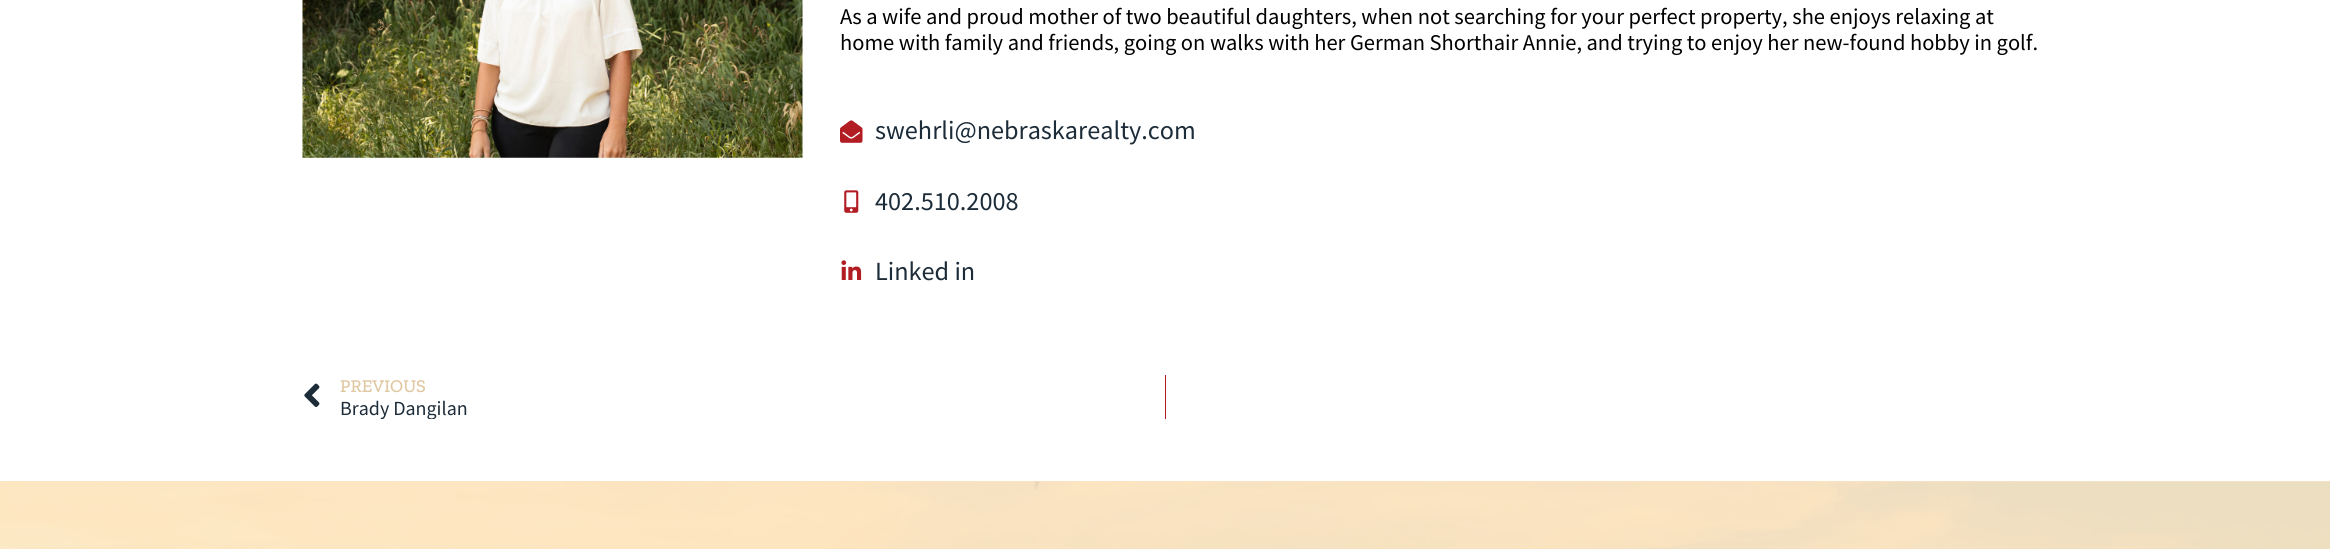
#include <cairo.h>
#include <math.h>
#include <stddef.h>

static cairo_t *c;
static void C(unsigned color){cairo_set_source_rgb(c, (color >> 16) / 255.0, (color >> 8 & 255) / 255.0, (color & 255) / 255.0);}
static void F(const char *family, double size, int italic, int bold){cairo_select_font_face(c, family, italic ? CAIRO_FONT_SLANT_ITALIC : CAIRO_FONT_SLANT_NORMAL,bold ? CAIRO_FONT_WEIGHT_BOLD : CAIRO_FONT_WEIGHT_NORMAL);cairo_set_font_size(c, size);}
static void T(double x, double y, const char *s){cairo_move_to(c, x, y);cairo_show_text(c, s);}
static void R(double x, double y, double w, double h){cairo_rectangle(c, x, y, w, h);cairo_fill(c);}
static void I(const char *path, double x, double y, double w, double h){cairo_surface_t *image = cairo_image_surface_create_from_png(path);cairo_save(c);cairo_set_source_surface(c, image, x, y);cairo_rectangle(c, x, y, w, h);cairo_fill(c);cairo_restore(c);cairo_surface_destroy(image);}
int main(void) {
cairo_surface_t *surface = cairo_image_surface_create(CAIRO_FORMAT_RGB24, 2330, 549);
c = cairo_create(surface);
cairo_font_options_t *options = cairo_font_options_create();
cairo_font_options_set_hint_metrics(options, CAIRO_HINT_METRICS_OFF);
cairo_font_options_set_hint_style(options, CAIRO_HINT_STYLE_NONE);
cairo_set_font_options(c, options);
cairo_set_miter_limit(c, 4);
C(0xffffff);
cairo_paint(c);
I("1.png",302,0,501,158);
F("Source Sans Pro",22.5,0,0);
C(0x000000);
T(840,24,"As a wife and proud mother of two beautiful daughters, when not searching for your perfect property, she enjoys relaxing at");
T(840,50,"home with family and friends, going on walks with her German Shorthair Annie, and trying to enjoy her new-found hobby in golf.");
I("2.png",840,120,23,23);
F("Source Sans Pro",26.25,0,0);
C(0x1d2c39);
T(875,139,"swehrli@nebraskarealty.com");
I("3.png",844,190,15,23);
T(875,210,"402.510.2008");
I("4.png",841,260,21,20);
T(875,280,"Linked in");
I("5.png",304,383,16,24);
F("Zilla Slab Medium",18,0,0);
C(0xe0c8a2);
T(340,392,"PREVIOUS");
cairo_save(c);
cairo_rectangle(c,340,396,128,23);
cairo_clip(c);
F("Source Sans Pro",20,0,0);
C(0x1d2c39);
T(340,415,"Brady Dangilan");
cairo_restore(c);
C(0xb21c23);
R(1165,375,1,44);
C(0xfde6c2);
R(0,481,2330,68);
I("6.png",0,481,2330,68);
cairo_surface_write_to_png(surface, "o.png");
cairo_font_options_destroy(options);
cairo_destroy(c);
cairo_surface_destroy(surface);
return 0;
}
